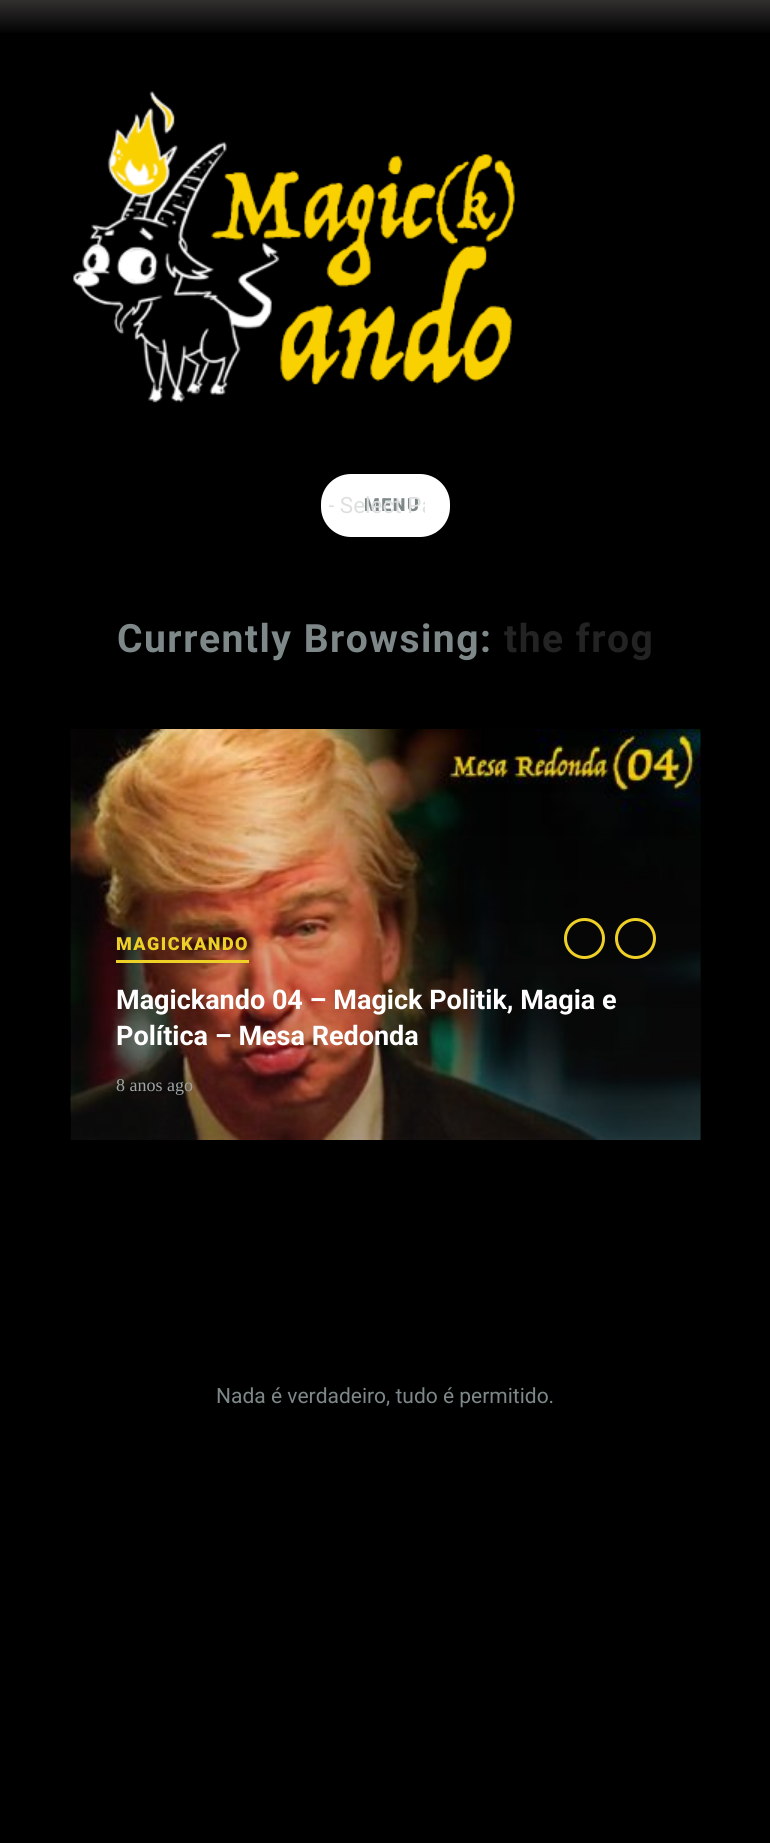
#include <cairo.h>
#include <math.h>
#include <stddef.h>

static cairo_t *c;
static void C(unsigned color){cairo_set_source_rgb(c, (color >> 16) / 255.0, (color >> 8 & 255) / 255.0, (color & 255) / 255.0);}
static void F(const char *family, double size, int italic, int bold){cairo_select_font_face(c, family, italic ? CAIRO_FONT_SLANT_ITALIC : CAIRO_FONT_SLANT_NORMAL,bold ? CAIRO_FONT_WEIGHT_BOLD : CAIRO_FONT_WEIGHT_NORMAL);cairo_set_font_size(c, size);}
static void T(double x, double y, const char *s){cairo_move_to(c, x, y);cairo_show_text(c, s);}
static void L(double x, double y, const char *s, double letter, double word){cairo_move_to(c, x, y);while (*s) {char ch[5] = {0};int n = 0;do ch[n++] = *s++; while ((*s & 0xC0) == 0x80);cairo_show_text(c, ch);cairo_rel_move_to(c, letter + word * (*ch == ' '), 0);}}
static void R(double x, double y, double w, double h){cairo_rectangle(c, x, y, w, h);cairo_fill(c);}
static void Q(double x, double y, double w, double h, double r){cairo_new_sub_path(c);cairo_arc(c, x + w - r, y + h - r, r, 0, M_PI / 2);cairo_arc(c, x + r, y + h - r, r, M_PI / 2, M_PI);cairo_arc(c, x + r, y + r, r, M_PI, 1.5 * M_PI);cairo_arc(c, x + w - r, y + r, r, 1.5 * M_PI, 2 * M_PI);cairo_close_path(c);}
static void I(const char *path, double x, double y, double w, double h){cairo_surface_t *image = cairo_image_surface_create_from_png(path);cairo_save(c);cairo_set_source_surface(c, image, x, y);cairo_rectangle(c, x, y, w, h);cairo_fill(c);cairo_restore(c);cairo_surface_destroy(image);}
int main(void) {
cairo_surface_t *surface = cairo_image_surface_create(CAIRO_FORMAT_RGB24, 770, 1843);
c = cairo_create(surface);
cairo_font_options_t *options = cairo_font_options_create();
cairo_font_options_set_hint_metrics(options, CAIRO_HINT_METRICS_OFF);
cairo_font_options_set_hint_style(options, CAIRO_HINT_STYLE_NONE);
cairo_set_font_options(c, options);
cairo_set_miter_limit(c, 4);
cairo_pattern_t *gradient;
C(0x000000);
cairo_paint(c);
gradient = cairo_pattern_create_linear(386,0,386,35);
cairo_pattern_add_color_stop_rgba(gradient,0,0.192,0.188,0.184,1);
cairo_pattern_add_color_stop_rgba(gradient,1,0,0,0,1);
cairo_set_source(c,gradient);
cairo_pattern_destroy(gradient);
R(0,0,770,33);
I("1.png",73,91,442,312);
C(0xffffff);
Q(321,474,129,63,30);
cairo_fill(c);
F("Roboto Black",18,0,0);
C(0x7e8889);
L(364,511,"MENU",1.5,0);
cairo_save(c);
cairo_rectangle(c,329,491,96,30);
cairo_clip(c);
F("Roboto",22.5,0,0);
C(0xdee0e0);
T(328,513,"- Select Pa");
cairo_restore(c);
F("Roboto",39,0,1);
L(117,652,"Currently Browsing:",1.5,0);
C(0x232323);
L(504,652,"the frog",1.5,0);
I("2.png",70,729,631,411);
gradient = cairo_pattern_create_linear(386,729,386,1140);
cairo_pattern_add_color_stop_rgba(gradient,0,0.125,0.125,0.125,0);
cairo_pattern_add_color_stop_rgba(gradient,1,0.125,0.125,0.125,.3);
cairo_set_source(c,gradient);
cairo_pattern_destroy(gradient);
R(71,759,630,381);
C(0xefd027);
R(116,960,133,3);
F("Roboto Black",18,0,0);
L(116,950,"MAGICKANDO",1.5,0);
cairo_new_path(c);
cairo_arc(c,584.5,938.5,19,0,2 * M_PI);
cairo_set_line_width(c,3);
cairo_stroke(c);
cairo_arc(c,635.5,938.5,19,0,2 * M_PI);
cairo_stroke(c);
F("Roboto",27,0,1);
C(0xffffff);
T(116,1009,"Magickando 04 – Magick Politik, Magia e");
T(116,1045,"Política – Mesa Redonda");
F("Liberation Serif",18,0,0);
C(0x9fa6a7);
T(116,1091,"8 anos ago");
F("Roboto",21,0,0);
C(0x7e8889);
T(216,1403,"Nada é verdadeiro, tudo é permitido.");
cairo_surface_write_to_png(surface, "o.png");
cairo_font_options_destroy(options);
cairo_destroy(c);
cairo_surface_destroy(surface);
return 0;
}
